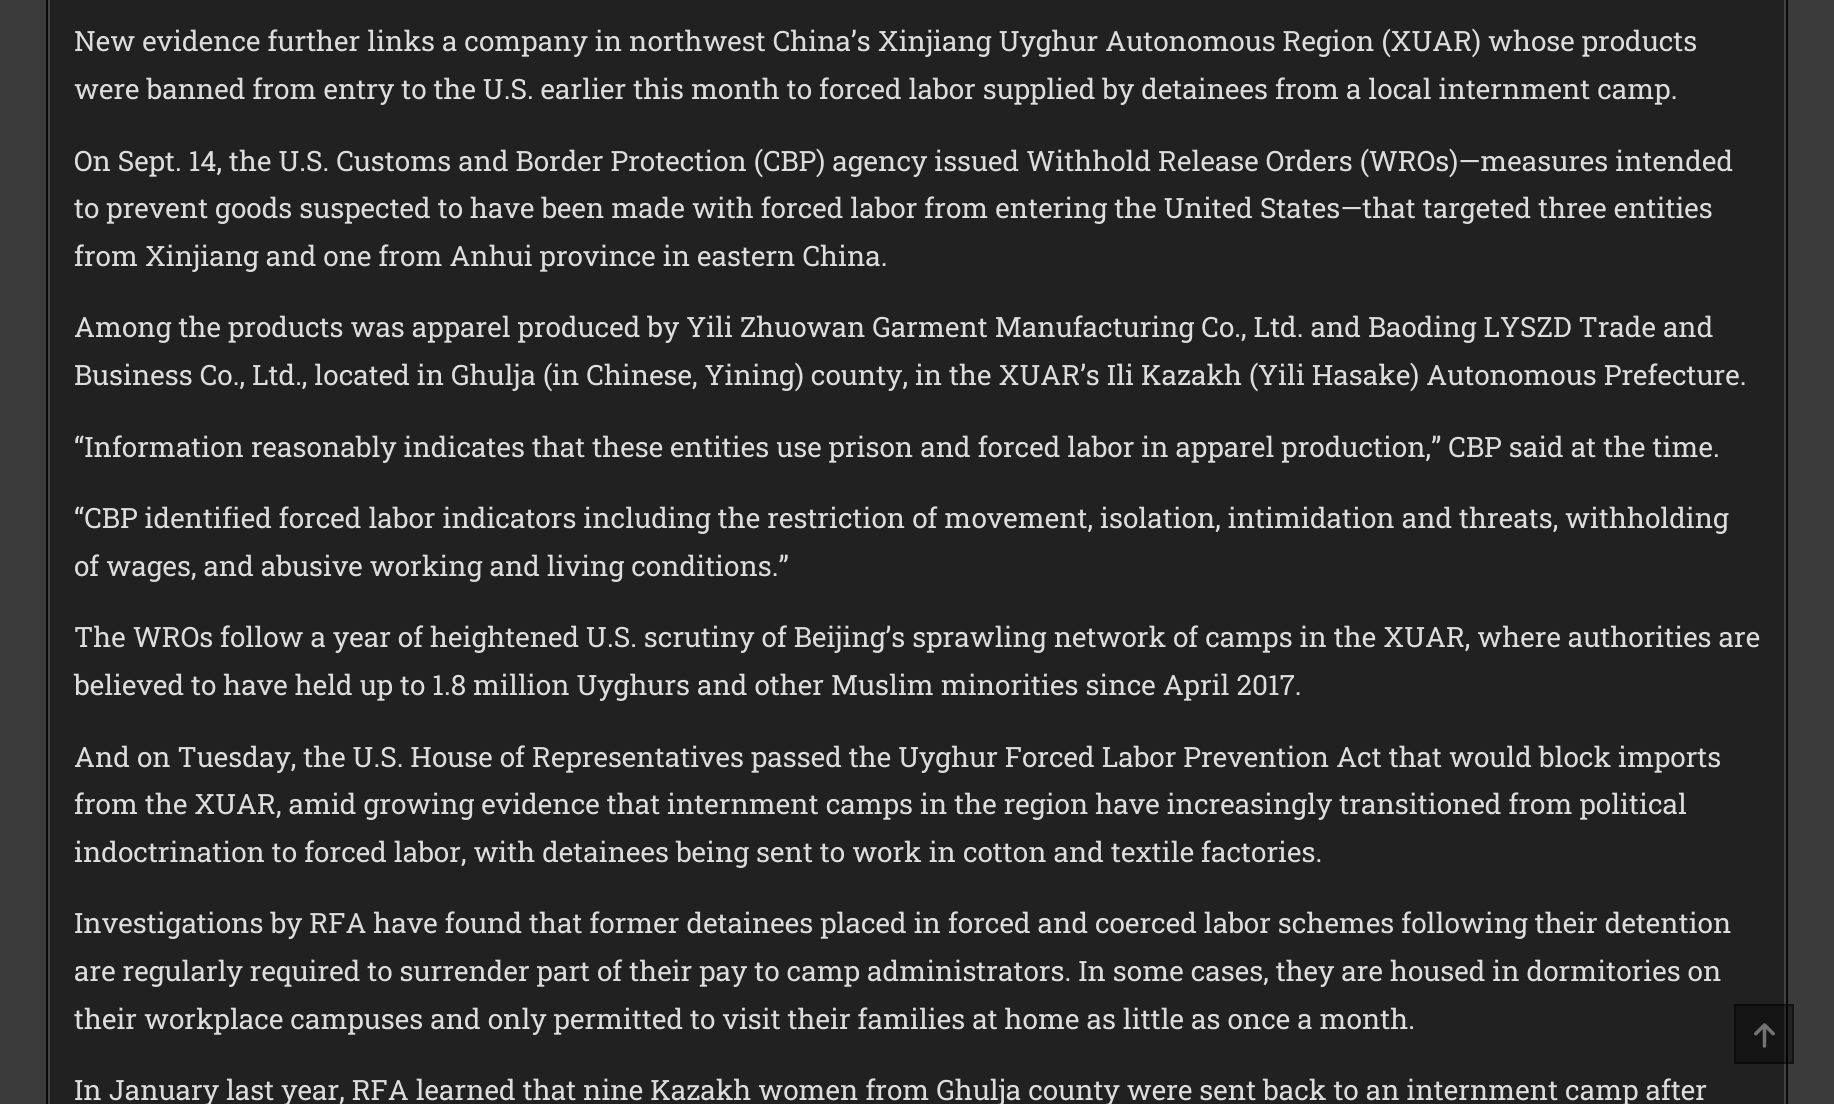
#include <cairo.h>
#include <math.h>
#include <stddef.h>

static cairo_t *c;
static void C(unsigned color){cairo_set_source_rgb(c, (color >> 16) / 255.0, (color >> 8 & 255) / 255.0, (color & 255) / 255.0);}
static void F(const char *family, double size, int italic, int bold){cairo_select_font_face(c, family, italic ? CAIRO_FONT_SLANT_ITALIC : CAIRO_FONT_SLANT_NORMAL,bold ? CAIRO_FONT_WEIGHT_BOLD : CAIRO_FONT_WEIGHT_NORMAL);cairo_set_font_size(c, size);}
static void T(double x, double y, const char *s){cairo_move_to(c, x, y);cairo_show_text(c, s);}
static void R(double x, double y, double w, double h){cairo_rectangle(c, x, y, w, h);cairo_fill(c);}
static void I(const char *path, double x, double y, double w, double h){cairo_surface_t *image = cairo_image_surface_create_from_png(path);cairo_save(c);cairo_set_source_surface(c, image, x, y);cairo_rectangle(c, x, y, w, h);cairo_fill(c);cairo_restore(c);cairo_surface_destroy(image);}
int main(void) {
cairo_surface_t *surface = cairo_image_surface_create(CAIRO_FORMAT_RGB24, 1834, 1104);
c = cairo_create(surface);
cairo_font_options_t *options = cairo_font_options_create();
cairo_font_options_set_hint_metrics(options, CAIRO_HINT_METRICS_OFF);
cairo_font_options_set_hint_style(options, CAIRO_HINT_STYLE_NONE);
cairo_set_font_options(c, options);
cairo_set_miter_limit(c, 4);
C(0x3b3b3b);
cairo_paint(c);
C(0x212121);
R(50,0,1734,1104);
cairo_rectangle(c,47,-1,1740,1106);
C(0x090909);
cairo_stroke(c);
cairo_rectangle(c,49,-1,1736,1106);
C(0x444444);
cairo_stroke(c);
F("Roboto Slab",28,0,0);
C(0xdddddd);
T(74,51,"New evidence further links a company in northwest China’s Xinjiang Uyghur Autonomous Region (XUAR) whose products");
T(74,99,"were banned from entry to the U.S. earlier this month to forced labor supplied by detainees from a local internment camp.");
T(74,171,"On Sept. 14, the U.S. Customs and Border Protection (CBP) agency issued Withhold Release Orders (WROs)—measures intended");
T(74,218,"to prevent goods suspected to have been made with forced labor from entering the United States—that targeted three entities");
T(74,266,"from Xinjiang and one from Anhui province in eastern China.");
T(74,337,"Among the products was apparel produced by Yili Zhuowan Garment Manufacturing Co., Ltd. and Baoding LYSZD Trade and");
T(74,385,"Business Co., Ltd., located in Ghulja (in Chinese, Yining) county, in the XUAR’s Ili Kazakh (Yili Hasake) Autonomous Prefecture.");
T(74,457,"“Information reasonably indicates that these entities use prison and forced labor in apparel production,” CBP said at the time.");
T(74,528,"“CBP identified forced labor indicators including the restriction of movement, isolation, intimidation and threats, withholding");
T(74,576,"of wages, and abusive working and living conditions.”");
T(74,647,"The WROs follow a year of heightened U.S. scrutiny of Beijing’s sprawling network of camps in the XUAR, where authorities are");
T(74,695,"believed to have held up to 1.8 million Uyghurs and other Muslim minorities since April 2017.");
T(74,767,"And on Tuesday, the U.S. House of Representatives passed the Uyghur Forced Labor Prevention Act that would block imports");
T(74,814,"from the XUAR, amid growing evidence that internment camps in the region have increasingly transitioned from political");
T(74,862,"indoctrination to forced labor, with detainees being sent to work in cotton and textile factories.");
T(74,933,"Investigations by RFA have found that former detainees placed in forced and coerced labor schemes following their detention");
T(74,981,"are regularly required to surrender part of their pay to camp administrators. In some cases, they are housed in dormitories on");
T(74,1029,"their workplace campuses and only permitted to visit their families at home as little as once a month.");
T(74,1100,"In January last year, RFA learned that nine Kazakh women from Ghulja county were sent back to an internment camp after");
cairo_set_source_rgba(c,0,0,0,0.4);
R(1734,1004,60,60);
cairo_rectangle(c,1735,1005,58,58);
cairo_stroke(c);
I("1.png",1754,1023,21,25);
cairo_surface_write_to_png(surface, "o.png");
cairo_font_options_destroy(options);
cairo_destroy(c);
cairo_surface_destroy(surface);
return 0;
}
